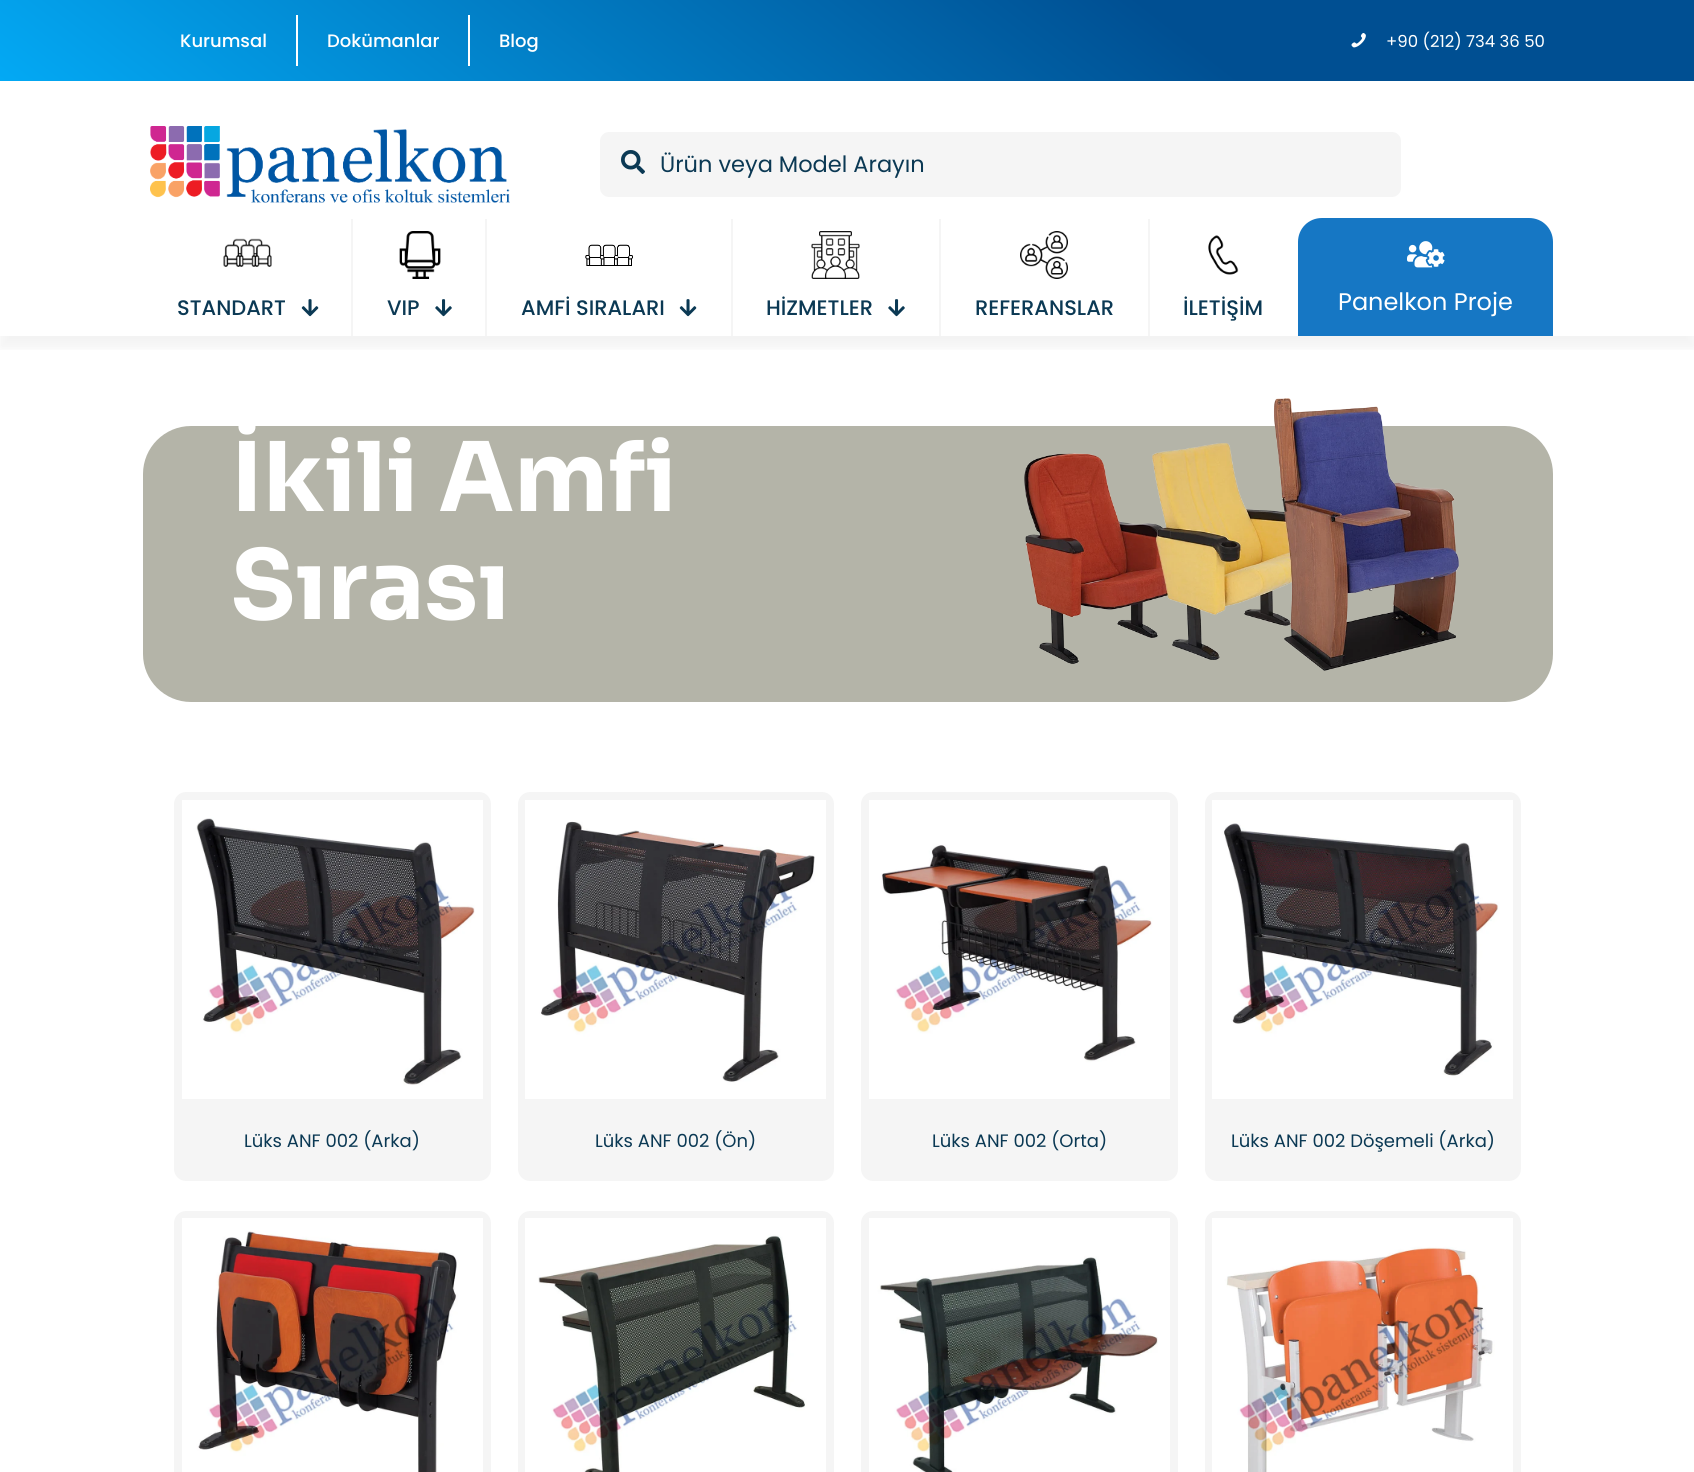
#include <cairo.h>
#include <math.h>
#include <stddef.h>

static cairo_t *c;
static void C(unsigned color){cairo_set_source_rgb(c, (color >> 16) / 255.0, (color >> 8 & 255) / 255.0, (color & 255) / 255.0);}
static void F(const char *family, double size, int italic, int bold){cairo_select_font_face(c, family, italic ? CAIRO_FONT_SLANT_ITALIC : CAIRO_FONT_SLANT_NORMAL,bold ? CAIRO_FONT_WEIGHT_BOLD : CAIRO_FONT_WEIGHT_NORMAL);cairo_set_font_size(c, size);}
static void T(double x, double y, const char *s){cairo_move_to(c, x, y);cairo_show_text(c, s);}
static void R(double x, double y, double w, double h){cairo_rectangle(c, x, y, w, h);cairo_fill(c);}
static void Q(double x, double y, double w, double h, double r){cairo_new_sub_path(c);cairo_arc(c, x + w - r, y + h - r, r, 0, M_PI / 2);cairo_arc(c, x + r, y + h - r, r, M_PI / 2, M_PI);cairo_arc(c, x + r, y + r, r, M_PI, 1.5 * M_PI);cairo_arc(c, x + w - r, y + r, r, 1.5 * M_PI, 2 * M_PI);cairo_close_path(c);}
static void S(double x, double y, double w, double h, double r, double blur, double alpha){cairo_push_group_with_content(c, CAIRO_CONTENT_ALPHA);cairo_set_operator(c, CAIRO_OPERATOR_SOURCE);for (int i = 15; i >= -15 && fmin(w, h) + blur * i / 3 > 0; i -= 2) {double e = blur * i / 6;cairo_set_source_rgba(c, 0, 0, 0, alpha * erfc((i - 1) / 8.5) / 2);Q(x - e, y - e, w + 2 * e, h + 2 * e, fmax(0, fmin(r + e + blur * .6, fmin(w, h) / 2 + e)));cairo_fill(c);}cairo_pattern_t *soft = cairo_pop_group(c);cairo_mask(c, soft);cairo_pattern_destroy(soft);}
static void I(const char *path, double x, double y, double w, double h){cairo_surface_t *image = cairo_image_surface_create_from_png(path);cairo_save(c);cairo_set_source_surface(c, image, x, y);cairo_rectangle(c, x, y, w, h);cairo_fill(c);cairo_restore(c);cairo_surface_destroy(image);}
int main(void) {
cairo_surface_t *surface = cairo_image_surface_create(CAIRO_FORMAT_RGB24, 1694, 1472);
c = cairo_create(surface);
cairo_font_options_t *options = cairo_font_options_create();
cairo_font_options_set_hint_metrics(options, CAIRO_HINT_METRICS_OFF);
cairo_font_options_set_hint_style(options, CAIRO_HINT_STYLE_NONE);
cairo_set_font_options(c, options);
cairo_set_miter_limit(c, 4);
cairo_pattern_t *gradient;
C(0xffffff);
cairo_paint(c);
gradient = cairo_pattern_create_linear(507,477,1188,-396);
cairo_pattern_add_color_stop_rgba(gradient,0,0.012,0.663,0.957,1);
cairo_pattern_add_color_stop_rgba(gradient,.69,0,0.31,0.573,1);
cairo_set_source(c,gradient);
cairo_pattern_destroy(gradient);
R(0,0,1694,81);
F("Poppins Medium",18,0,0);
C(0xffffff);
T(180,47,"Kurumsal");
R(296,15,2,51);
T(327,47,"Dokümanlar");
R(468,15,2,51);
T(499,47,"Blog");
I("1.png",1351,33,15,15);
F("Poppins",16.5,0,0);
T(1386,47,"+90 (212) 734 36 50");
I("2.png",150,126,360,77);
C(0xf5f5f5);
Q(600,132,801,65,9);
cairo_fill(c);
I("3.png",621,150,24,24);
F("Poppins",22.5,0,0);
C(0x0b3954);
T(660,172,"Ürün veya Model Arayın");
cairo_save(c);
cairo_rectangle(c,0,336,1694,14);
cairo_clip(c);
C(0x000000);
S(0,230,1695,118,0,6,.05);
cairo_restore(c);
I("4.png",223,238,49,29);
F("Poppins Medium",21,0,0);
T(177,315,"STANDART");
I("5.png",301,299,18,18);
C(0xf5f5f5);
R(351,219,2,117);
I("6.png",399,231,42,48);
C(0x0b3954);
T(387,315,"VIP");
I("7.png",435,299,17,18);
C(0xf5f5f5);
R(485,219,2,117);
I("8.png",585,244,48,22);
C(0x0b3954);
T(521,315,"AMFİ SIRALARI");
I("5.png",679,299,18,18);
C(0xf5f5f5);
R(731,219,2,117);
I("9.png",811,231,49,48);
C(0x0b3954);
T(766,315,"HİZMETLER");
I("7.png",888,299,17,18);
C(0xf5f5f5);
R(939,219,2,117);
I("10.png",1020,231,48,48);
C(0x0b3954);
T(975,315,"REFERANSLAR");
C(0xf5f5f5);
R(1148,219,2,117);
I("11.png",1208,235,31,40);
C(0x0b3954);
T(1183,315,"İLETİŞİM");
C(0x1677c4);
cairo_new_path(c);
cairo_move_to(c,1322,218);
cairo_line_to(c,1529,218);
cairo_curve_to(c,1542.5,218,1553,228.5,1553,242);
cairo_line_to(c,1553,336);
cairo_line_to(c,1298,336);
cairo_line_to(c,1298,242);
cairo_curve_to(c,1298,228.5,1308.5,218,1322,218);
cairo_close_path(c);
cairo_fill(c);
I("12.png",1407,241,38,27);
F("Poppins",24,0,0);
C(0xffffff);
T(1338,310,"Panelkon Proje");
C(0xb4b4a8);
Q(143,426,1410,276,48);
cairo_fill(c);
F("Sora",96,0,1);
C(0xffffff);
T(231,511,"İkili Amfi");
T(231,619,"Sırası");
I("13.png",1024,398,435,273);
C(0xf5f5f5);
Q(174,792,317,389,12);
cairo_fill(c);
I("14.png",182,800,301,299);
F("Poppins",18,0,0);
C(0x0b3954);
T(244,1147,"Lüks ANF 002 (Arka)");
C(0xf5f5f5);
Q(518,792,316,389,12);
cairo_fill(c);
I("15.png",525,800,301,299);
C(0x0b3954);
T(595,1147,"Lüks ANF 002 (Ön)");
C(0xf5f5f5);
Q(861,792,317,389,12);
cairo_fill(c);
I("16.png",869,800,301,299);
C(0x0b3954);
T(932,1147,"Lüks ANF 002 (Orta)");
C(0xf5f5f5);
Q(1205,792,316,389,12);
cairo_fill(c);
I("17.png",1212,800,301,299);
C(0x0b3954);
T(1231,1147,"Lüks ANF 002 Döşemeli (Arka)");
C(0xf5f5f5);
Q(174,1211,317,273,12);
cairo_fill(c);
I("18.png",182,1218,301,254);
Q(518,1211,316,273,12);
cairo_fill(c);
I("19.png",525,1218,301,254);
Q(861,1211,317,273,12);
cairo_fill(c);
I("20.png",869,1218,301,254);
Q(1205,1211,316,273,12);
cairo_fill(c);
I("21.png",1212,1218,301,254);
cairo_surface_write_to_png(surface, "o.png");
cairo_font_options_destroy(options);
cairo_destroy(c);
cairo_surface_destroy(surface);
return 0;
}
